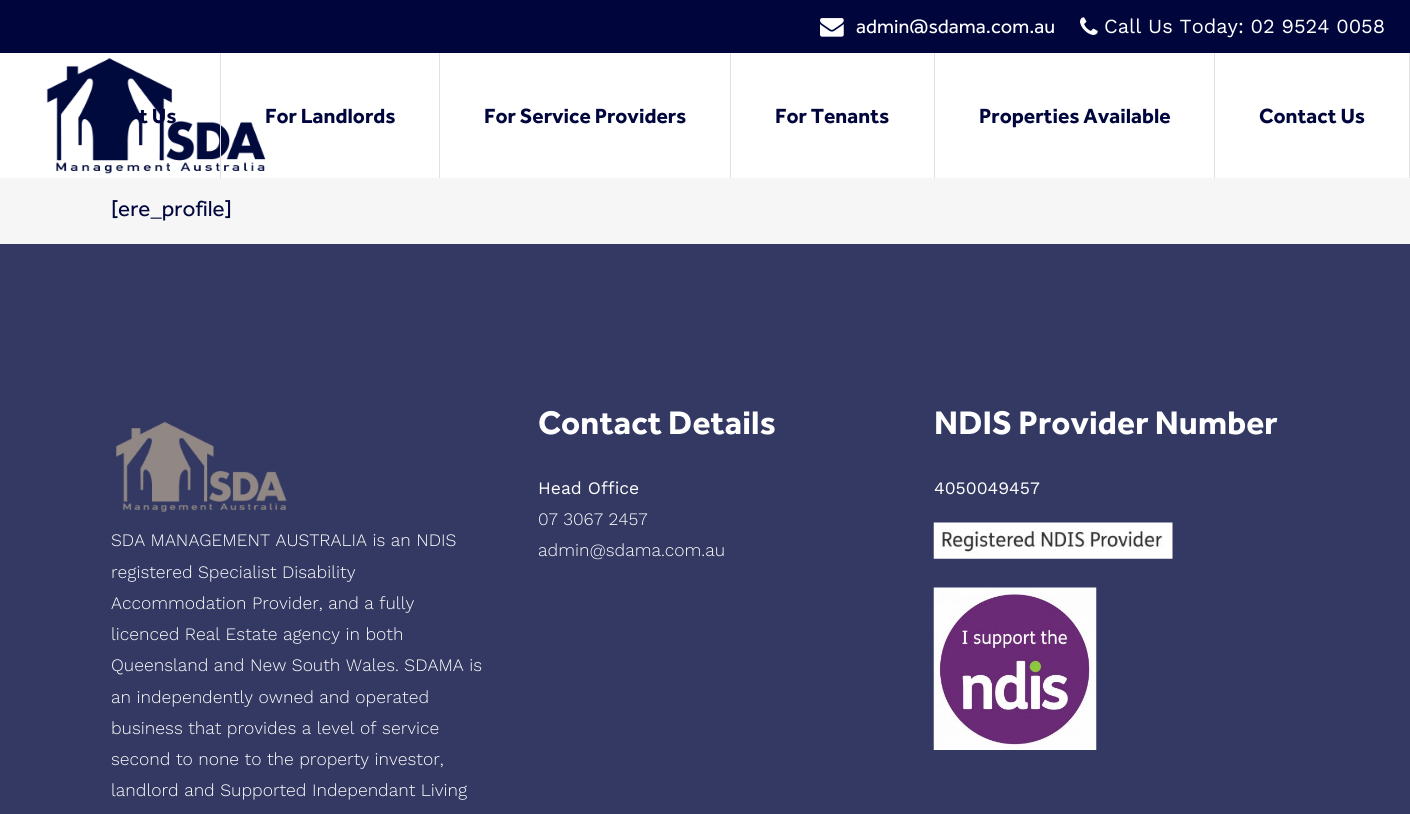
#include <cairo.h>
#include <math.h>
#include <stddef.h>

static cairo_t *c;
static void C(unsigned color){cairo_set_source_rgb(c, (color >> 16) / 255.0, (color >> 8 & 255) / 255.0, (color & 255) / 255.0);}
static void F(const char *family, double size, int italic, int bold){cairo_select_font_face(c, family, italic ? CAIRO_FONT_SLANT_ITALIC : CAIRO_FONT_SLANT_NORMAL,bold ? CAIRO_FONT_WEIGHT_BOLD : CAIRO_FONT_WEIGHT_NORMAL);cairo_set_font_size(c, size);}
static void T(double x, double y, const char *s){cairo_move_to(c, x, y);cairo_show_text(c, s);}
static void L(double x, double y, const char *s, double letter, double word){cairo_move_to(c, x, y);while (*s) {char ch[5] = {0};int n = 0;do ch[n++] = *s++; while ((*s & 0xC0) == 0x80);cairo_show_text(c, ch);cairo_rel_move_to(c, letter + word * (*ch == ' '), 0);}}
static void R(double x, double y, double w, double h){cairo_rectangle(c, x, y, w, h);cairo_fill(c);}
static void I(const char *path, double x, double y, double w, double h){cairo_surface_t *image = cairo_image_surface_create_from_png(path);cairo_save(c);cairo_set_source_surface(c, image, x, y);cairo_rectangle(c, x, y, w, h);cairo_fill(c);cairo_restore(c);cairo_surface_destroy(image);}
int main(void) {
cairo_surface_t *surface = cairo_image_surface_create(CAIRO_FORMAT_RGB24, 1410, 814);
c = cairo_create(surface);
cairo_font_options_t *options = cairo_font_options_create();
cairo_font_options_set_hint_metrics(options, CAIRO_HINT_METRICS_OFF);
cairo_font_options_set_hint_style(options, CAIRO_HINT_STYLE_NONE);
cairo_set_font_options(c, options);
cairo_set_miter_limit(c, 4);
C(0xf6f6f6);
cairo_paint(c);
C(0x00063c);
R(0,0,1410,53);
I("1.png",820,18,24,19);
F("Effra",20,0,0);
C(0xffffff);
T(856,33,"admin@sdama.com.au");
I("2.png",1080,17,18,18);
F("Work Sans",20,0,0);
T(1104,33,"Call Us Today: 02 9524 0058");
R(0,53,1409,125);
I("3.png",46,58,220,116);
C(0xe1e1e1);
R(220,53,1,125);
F("Effra",21.25,0,1);
C(0x00063c);
T(139,123,"t Us");
C(0xe1e1e1);
R(439,53,1,125);
C(0x00063c);
T(265,123,"For Landlords");
C(0xe1e1e1);
R(730,53,1,125);
C(0x00063c);
T(484,123,"For Service Providers");
C(0xe1e1e1);
R(934,53,1,125);
C(0x00063c);
T(775,123,"For Tenants");
C(0xe1e1e1);
R(1214,53,1,125);
C(0x00063c);
T(979,123,"Properties Available");
C(0xe1e1e1);
R(1409,53,1,125);
C(0x00063c);
T(1259,123,"Contact Us");
F("Effra",22.5,0,0);
T(111,216,"[ere_profile]");
C(0x333962);
R(0,244,1410,570);
F("Effra",33.75,0,1);
C(0xffffff);
L(538,434,"Contact Details",.1,0);
F("Work Sans",17.5,0,0);
T(538,494,"Head Office");
F("Work Sans Light",17.5,0,0);
T(538,525,"07 3067 2457");
T(538,556,"admin@sdama.com.au");
F("Effra",33.75,0,1);
L(934,434,"NDIS Provider Number",.1,0);
F("Work Sans",17.5,0,0);
T(934,494,"4050049457");
I("4.png",933,522,240,37);
I("5.png",933,587,164,163);
I("6.png",116,421,171,91);
F("Work Sans Light",17.5,0,0);
T(111,546,"SDA MANAGEMENT AUSTRALIA is an NDIS");
T(111,578,"registered Specialist Disability");
T(111,609,"Accommodation Provider, and a fully");
T(111,640,"licenced Real Estate agency in both");
T(111,671,"Queensland and New South Wales. SDAMA is");
T(111,703,"an independently owned and operated");
T(111,734,"business that provides a level of service");
T(111,765,"second to none to the property investor,");
T(111,796,"landlord and Supported Independant Living");
cairo_surface_write_to_png(surface, "o.png");
cairo_font_options_destroy(options);
cairo_destroy(c);
cairo_surface_destroy(surface);
return 0;
}
